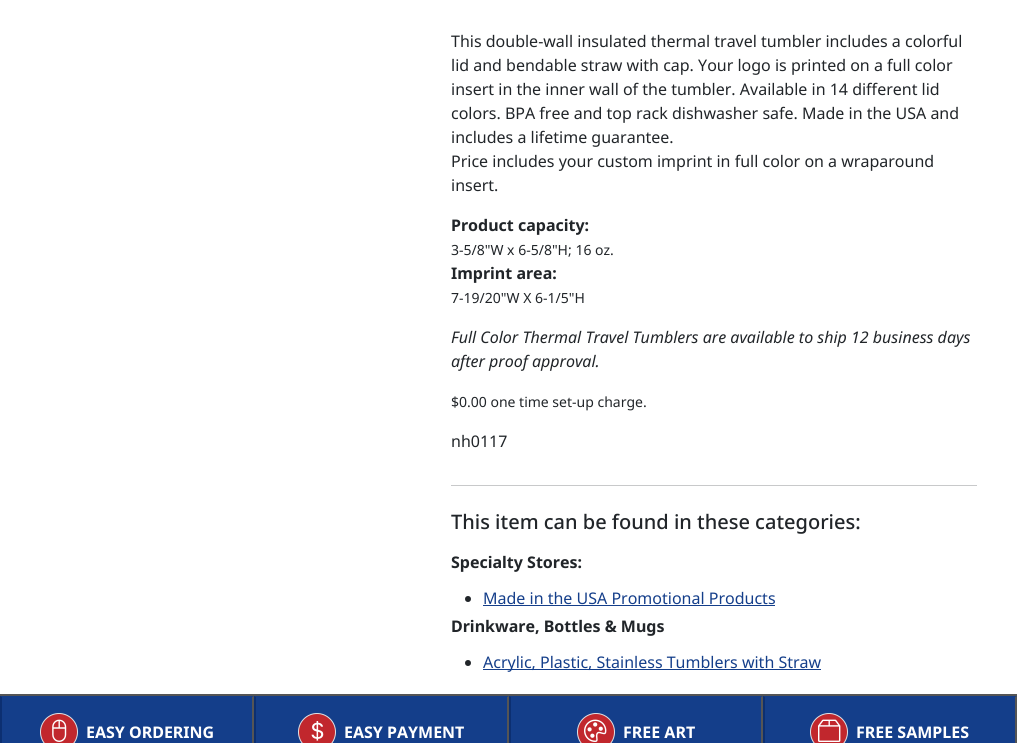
#include <cairo.h>
#include <math.h>
#include <stddef.h>

static cairo_t *c;
static void C(unsigned color){cairo_set_source_rgb(c, (color >> 16) / 255.0, (color >> 8 & 255) / 255.0, (color & 255) / 255.0);}
static void F(const char *family, double size, int italic, int bold){cairo_select_font_face(c, family, italic ? CAIRO_FONT_SLANT_ITALIC : CAIRO_FONT_SLANT_NORMAL,bold ? CAIRO_FONT_WEIGHT_BOLD : CAIRO_FONT_WEIGHT_NORMAL);cairo_set_font_size(c, size);}
static void T(double x, double y, const char *s){cairo_move_to(c, x, y);cairo_show_text(c, s);}
static void R(double x, double y, double w, double h){cairo_rectangle(c, x, y, w, h);cairo_fill(c);}
static void I(const char *path, double x, double y, double w, double h){cairo_surface_t *image = cairo_image_surface_create_from_png(path);cairo_save(c);cairo_set_source_surface(c, image, x, y);cairo_rectangle(c, x, y, w, h);cairo_fill(c);cairo_restore(c);cairo_surface_destroy(image);}
int main(void) {
cairo_surface_t *surface = cairo_image_surface_create(CAIRO_FORMAT_RGB24, 1017, 743);
c = cairo_create(surface);
cairo_font_options_t *options = cairo_font_options_create();
cairo_font_options_set_hint_metrics(options, CAIRO_HINT_METRICS_OFF);
cairo_font_options_set_hint_style(options, CAIRO_HINT_STYLE_NONE);
cairo_set_font_options(c, options);
cairo_set_miter_limit(c, 4);
C(0xffffff);
cairo_paint(c);
F("Noto Sans",16,0,0);
C(0x212529);
T(451,47,"This double-wall insulated thermal travel tumbler includes a colorful");
T(451,71,"lid and bendable straw with cap. Your logo is printed on a full color");
T(451,95,"insert in the inner wall of the tumbler. Available in 14 different lid");
T(451,119,"colors. BPA free and top rack dishwasher safe. Made in the USA and");
T(451,143,"includes a lifetime guarantee.");
T(451,167,"Price includes your custom imprint in full color on a wraparound");
T(451,191,"insert.");
F("Noto Sans",16,0,1);
T(451,231,"Product capacity:");
F("Noto Sans",14,0,0);
T(451,255,"3-5/8\"W x 6-5/8\"H; 16 oz.");
F("Noto Sans",16,0,1);
T(451,279,"Imprint area:");
F("Noto Sans",14,0,0);
T(451,303,"7-19/20\"W X 6-1/5\"H");
F("Noto Sans",16,1,0);
T(451,343,"Full Color Thermal Travel Tumblers are available to ship 12 business days");
T(451,367,"after proof approval.");
F("Noto Sans",14,0,0);
T(451,407,"$0.00 one time set-up charge.");
F("Noto Sans",16,0,0);
T(451,447,"nh0117");
C(0xc8c9ca);
R(451,485,526,1);
F("Noto Sans Medium",20,0,0);
C(0x212529);
T(451,529,"This item can be found in these categories:");
F("Noto Sans",16,0,1);
T(451,568,"Specialty Stores:");
cairo_new_path(c);
cairo_arc(c,468,599,3,0,2 * M_PI);
cairo_fill(c);
F("Noto Sans",16,0,0);
C(0x143e8a);
T(483,604,"Made in the USA Promotional Products");
R(483,605,292,1);
F("Noto Sans",16,0,1);
C(0x212529);
T(451,632,"Drinkware, Bottles & Mugs");
cairo_new_path(c);
cairo_arc(c,468,663,3,0,2 * M_PI);
cairo_fill(c);
C(0x143e8a);
R(483,669,338,1);
F("Noto Sans",16,0,0);
T(483,668,"Acrylic, Plastic, Stainless Tumblers with Straw");
R(0,696,1017,47);
C(0x555555);
R(0,694,1017,2);
cairo_new_path(c);
cairo_move_to(c,254,696);
cairo_line_to(c,254,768);
cairo_line_to(c,252,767);
cairo_line_to(c,252,697);
cairo_close_path(c);
cairo_fill(c);
C(0x0c2f71);
cairo_new_path(c);
cairo_move_to(c,0,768);
cairo_line_to(c,0,696);
cairo_line_to(c,2,697);
cairo_line_to(c,2,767);
cairo_close_path(c);
cairo_fill(c);
C(0xc1272d);
cairo_arc(c,59,732,18.5,0,2 * M_PI);
cairo_fill_preserve(c);
C(0xdee2e6);
cairo_set_line_width(c,1);
cairo_stroke(c);
I("1.png",52,719,15,23);
F("Noto Sans",16,0,1);
C(0xffffff);
T(86,738,"EASY ORDERING");
C(0x555555);
cairo_new_path(c);
cairo_move_to(c,509,696);
cairo_line_to(c,509,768);
cairo_line_to(c,507,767);
cairo_line_to(c,507,697);
cairo_close_path(c);
cairo_fill(c);
C(0x0c2f71);
cairo_new_path(c);
cairo_move_to(c,254,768);
cairo_line_to(c,254,696);
cairo_line_to(c,256,697);
cairo_line_to(c,256,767);
cairo_close_path(c);
cairo_fill(c);
C(0xc1272d);
cairo_arc(c,317,732,18.5,0,2 * M_PI);
cairo_fill_preserve(c);
C(0xdee2e6);
cairo_stroke(c);
I("2.png",311,721,13,20);
C(0xffffff);
T(344,738,"EASY PAYMENT");
C(0x555555);
cairo_new_path(c);
cairo_move_to(c,763,696);
cairo_line_to(c,763,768);
cairo_line_to(c,761,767);
cairo_line_to(c,761,697);
cairo_close_path(c);
cairo_fill(c);
C(0x0c2f71);
cairo_new_path(c);
cairo_move_to(c,509,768);
cairo_line_to(c,509,696);
cairo_line_to(c,511,697);
cairo_line_to(c,511,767);
cairo_close_path(c);
cairo_fill(c);
C(0xc1272d);
cairo_arc(c,596,732,18.5,0,2 * M_PI);
cairo_fill_preserve(c);
C(0xdee2e6);
cairo_stroke(c);
I("3.png",584,719,23,23);
C(0xffffff);
T(623,738,"FREE ART");
C(0x555555);
cairo_new_path(c);
cairo_move_to(c,1017,696);
cairo_line_to(c,1017,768);
cairo_line_to(c,1015,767);
cairo_line_to(c,1015,697);
cairo_close_path(c);
cairo_fill(c);
C(0x0c2f71);
cairo_new_path(c);
cairo_move_to(c,763,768);
cairo_line_to(c,763,696);
cairo_line_to(c,765,697);
cairo_line_to(c,765,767);
cairo_close_path(c);
cairo_fill(c);
C(0xc1272d);
cairo_arc(c,829,732,18.5,0,2 * M_PI);
cairo_fill_preserve(c);
C(0xdee2e6);
cairo_stroke(c);
I("4.png",818,719,23,23);
C(0xffffff);
T(856,738,"FREE SAMPLES");
cairo_surface_write_to_png(surface, "o.png");
cairo_font_options_destroy(options);
cairo_destroy(c);
cairo_surface_destroy(surface);
return 0;
}
